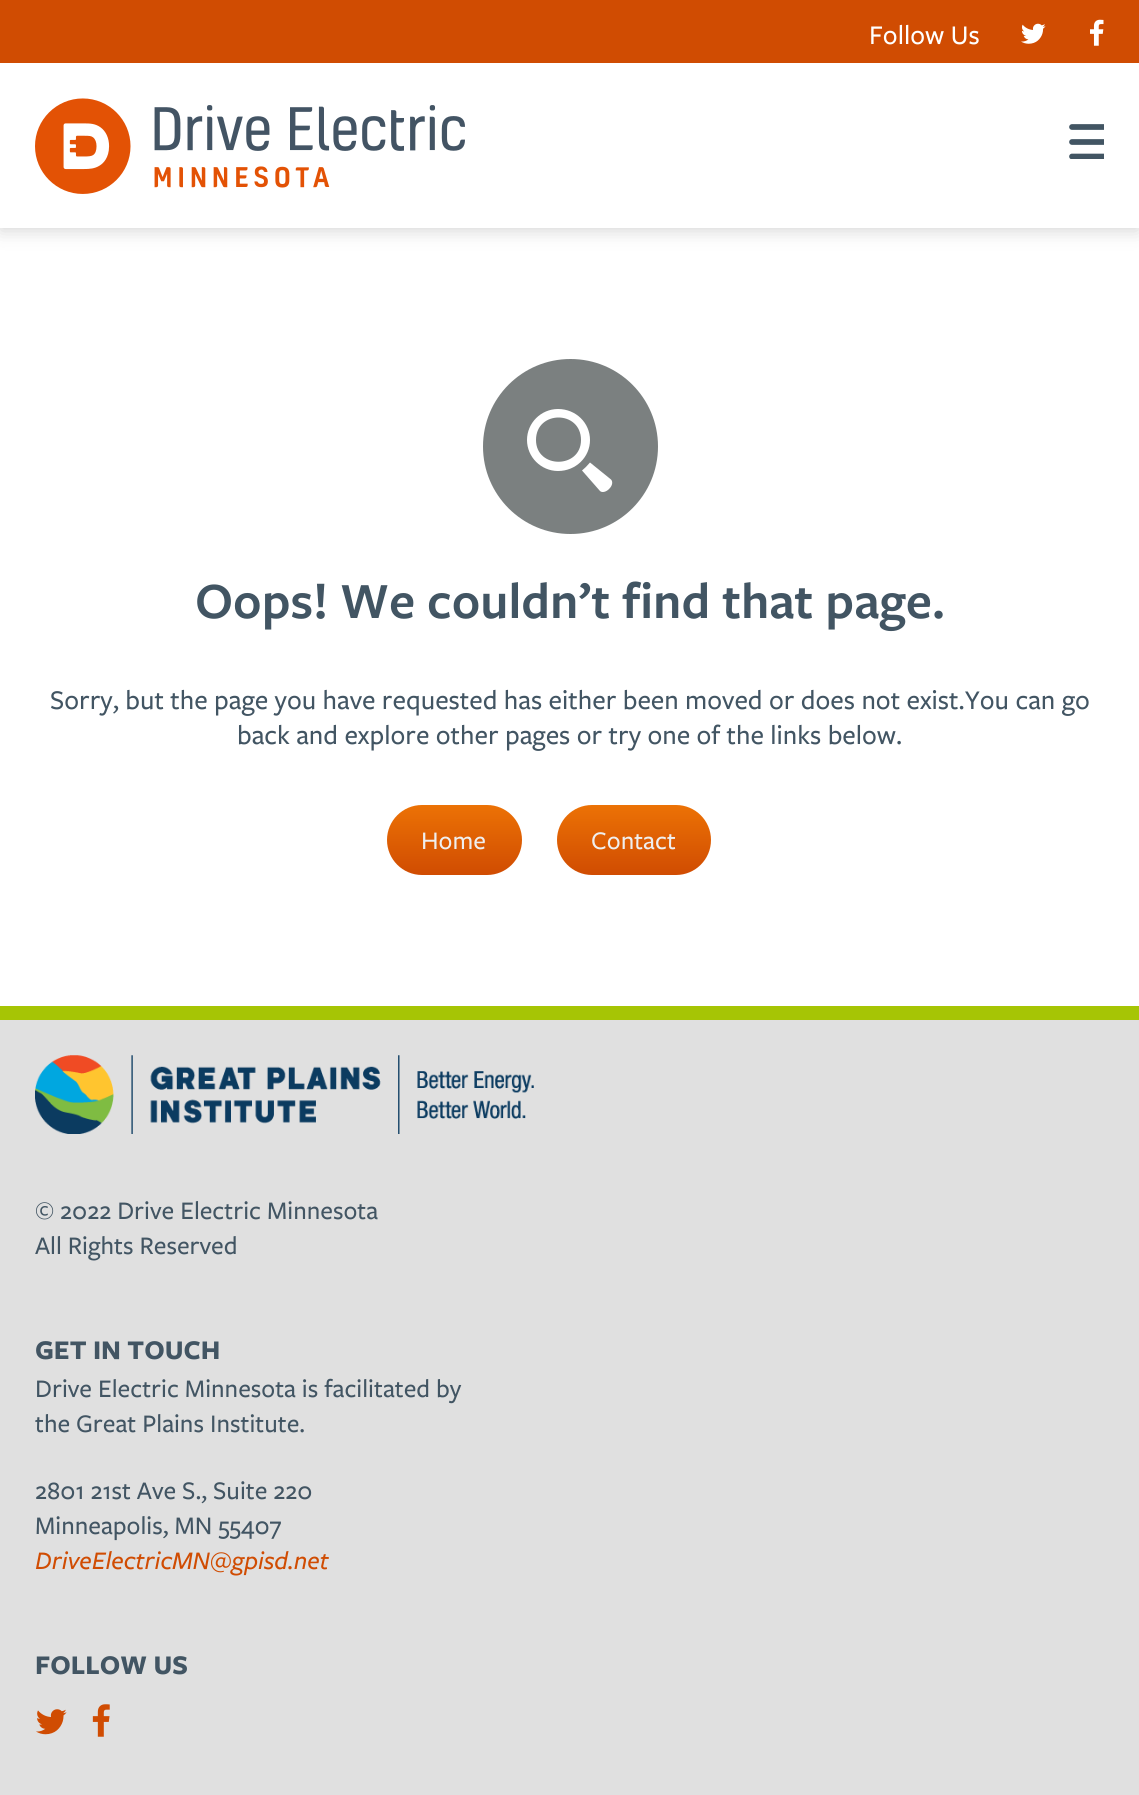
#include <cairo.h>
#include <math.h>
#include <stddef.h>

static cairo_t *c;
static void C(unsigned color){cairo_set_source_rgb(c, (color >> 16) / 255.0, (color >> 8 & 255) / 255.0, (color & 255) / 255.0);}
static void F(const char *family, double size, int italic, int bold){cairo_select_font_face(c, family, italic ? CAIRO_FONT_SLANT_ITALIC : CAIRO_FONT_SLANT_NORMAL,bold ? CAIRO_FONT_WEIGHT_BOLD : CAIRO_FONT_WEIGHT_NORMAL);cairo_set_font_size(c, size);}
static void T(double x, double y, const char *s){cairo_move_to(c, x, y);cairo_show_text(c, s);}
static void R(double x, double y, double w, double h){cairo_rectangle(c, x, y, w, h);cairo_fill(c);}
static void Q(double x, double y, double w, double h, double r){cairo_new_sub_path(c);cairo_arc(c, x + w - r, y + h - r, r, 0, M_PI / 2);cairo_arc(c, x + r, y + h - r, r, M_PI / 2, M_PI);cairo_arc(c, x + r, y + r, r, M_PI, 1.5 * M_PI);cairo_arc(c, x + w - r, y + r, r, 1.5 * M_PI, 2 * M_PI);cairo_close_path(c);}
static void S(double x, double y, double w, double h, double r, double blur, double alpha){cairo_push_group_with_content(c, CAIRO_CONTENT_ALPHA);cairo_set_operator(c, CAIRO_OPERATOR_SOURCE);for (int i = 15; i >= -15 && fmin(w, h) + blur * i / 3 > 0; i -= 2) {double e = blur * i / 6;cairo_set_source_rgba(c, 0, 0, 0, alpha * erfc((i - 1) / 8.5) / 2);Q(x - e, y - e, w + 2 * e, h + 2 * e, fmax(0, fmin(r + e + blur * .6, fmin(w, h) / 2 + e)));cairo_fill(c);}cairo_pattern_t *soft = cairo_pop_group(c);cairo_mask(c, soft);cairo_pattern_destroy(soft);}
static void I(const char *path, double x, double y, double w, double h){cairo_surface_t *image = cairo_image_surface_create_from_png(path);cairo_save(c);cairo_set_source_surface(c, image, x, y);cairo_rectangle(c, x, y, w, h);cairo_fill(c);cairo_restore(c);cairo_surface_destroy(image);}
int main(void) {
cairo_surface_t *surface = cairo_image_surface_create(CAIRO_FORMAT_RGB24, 1139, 1795);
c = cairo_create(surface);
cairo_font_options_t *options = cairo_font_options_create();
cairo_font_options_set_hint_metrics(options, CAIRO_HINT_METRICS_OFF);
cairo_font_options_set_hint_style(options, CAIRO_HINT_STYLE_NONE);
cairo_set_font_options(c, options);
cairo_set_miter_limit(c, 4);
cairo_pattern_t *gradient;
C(0xffffff);
cairo_paint(c);
cairo_save(c);
cairo_set_fill_rule(c,CAIRO_FILL_RULE_EVEN_ODD);
cairo_new_path(c);
cairo_move_to(c,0,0);
cairo_line_to(c,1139,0);
cairo_line_to(c,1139,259);
cairo_line_to(c,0,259);
cairo_close_path(c);
cairo_move_to(c,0,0);
cairo_line_to(c,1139,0);
cairo_line_to(c,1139,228);
cairo_line_to(c,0,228);
cairo_close_path(c);
cairo_clip(c);
C(0x323232);
S(0,4,1139,227,0,9,.2);
cairo_restore(c);
C(0xd04c02);
R(0,0,1139,63);
F("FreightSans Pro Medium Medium",28,0,0);
C(0xffffff);
T(869,44,"Follow Us");
I("1.png",1021,23,25,21);
I("2.png",1090,19,14,27);
I("3.png",35,98,430,96);
cairo_save(c);
cairo_rectangle(c,1069,124,35,35);
cairo_clip(c);
cairo_new_path(c);
cairo_move_to(c,1072,127);
cairo_line_to(c,1108.5,127);
cairo_move_to(c,1072,142);
cairo_line_to(c,1108.5,142);
cairo_move_to(c,1072,156.5);
cairo_line_to(c,1108.5,156.5);
C(0x425563);
cairo_set_line_width(c,5.7);
cairo_set_line_cap(c,CAIRO_LINE_CAP_ROUND);
cairo_stroke(c);
cairo_restore(c);
C(0x7b8080);
cairo_arc(c,570.5,446.5,87.5,0,2 * M_PI);
cairo_fill(c);
C(0xffffff);
cairo_new_path(c);
cairo_move_to(c,590,440);
cairo_curve_to(c,590,457,576,471,558,471);
cairo_curve_to(c,541,471,527,457,527,440);
cairo_curve_to(c,527,423,541,409,558,409);
cairo_curve_to(c,576,409,590,423,590,440);
cairo_close_path(c);
cairo_move_to(c,536,440);
cairo_curve_to(c,536,469,581,469,581,440);
cairo_curve_to(c,581,410,536,410,536,440);
cairo_close_path(c);
cairo_fill(c);
cairo_new_path(c);
cairo_move_to(c,582,470.5);
cairo_line_to(c,600,491);
cairo_curve_to(c,602,493,606.5,492,609.5,488.5);
cairo_curve_to(c,612.5,485.5,613,481.5,611,479.5);
cairo_line_to(c,590,462.5);
cairo_curve_to(c,587.5,465.5,584.5,468.5,582,470.5);
cairo_close_path(c);
cairo_fill(c);
F("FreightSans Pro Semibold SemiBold",52.5,0,0);
C(0x425563);
T(195,618,"Oops! We couldn’t find that page.");
F("FreightSans Pro Medium Medium",28,0,0);
T(50,709,"Sorry, but the page you have requested has either been moved or does not exist.You can go");
T(237,744,"back and explore other pages or try one of the links below.");
gradient = cairo_pattern_create_linear(454,805,454,875);
cairo_pattern_add_color_stop_rgba(gradient,0,0.925,0.447,0.02,1);
cairo_pattern_add_color_stop_rgba(gradient,1,0.816,0.298,0.008,1);
cairo_set_source(c,gradient);
cairo_pattern_destroy(gradient);
Q(387,805,135,70,35);
cairo_fill(c);
F("FreightSans Pro Medium Medium",26.25,0,0);
C(0xefefef);
T(421,849,"Home");
gradient = cairo_pattern_create_linear(634,805,634,875);
cairo_pattern_add_color_stop_rgba(gradient,0,0.925,0.447,0.02,1);
cairo_pattern_add_color_stop_rgba(gradient,1,0.816,0.298,0.008,1);
cairo_set_source(c,gradient);
cairo_pattern_destroy(gradient);
Q(557,805,154,70,35);
cairo_fill(c);
C(0xefefef);
T(591,849,"Contact");
C(0xe0e0e0);
R(0,1020,1139,775);
C(0xa6c505);
R(0,1006,1139,14);
I("4.png",35,1055,499,79);
C(0x425563);
T(35,1219,"© 2022 Drive Electric Minnesota");
T(35,1254,"All Rights Reserved");
F("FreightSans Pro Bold",28,0,1);
T(35,1359,"GET IN TOUCH");
F("FreightSans Pro Medium Medium",26.25,0,0);
T(35,1397,"Drive Electric Minnesota is facilitated by");
T(35,1432,"the Great Plains Institute.");
T(35,1499,"2801 21st Ave S., Suite 220");
T(35,1534,"Minneapolis, MN 55407");
F("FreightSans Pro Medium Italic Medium",26.25,1,0);
C(0xd04c02);
T(35,1569,"DriveElectricMN@gpisd.net");
F("FreightSans Pro Bold",28,0,1);
C(0x425563);
T(35,1674,"FOLLOW US");
I("5.png",36,1709,31,26);
I("6.png",92,1704,18,33);
cairo_surface_write_to_png(surface, "o.png");
cairo_font_options_destroy(options);
cairo_destroy(c);
cairo_surface_destroy(surface);
return 0;
}
